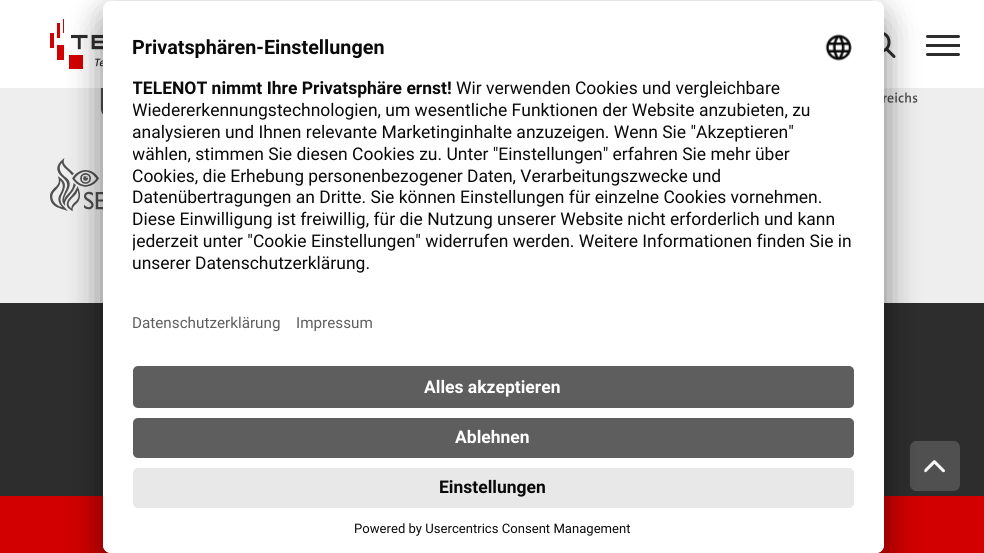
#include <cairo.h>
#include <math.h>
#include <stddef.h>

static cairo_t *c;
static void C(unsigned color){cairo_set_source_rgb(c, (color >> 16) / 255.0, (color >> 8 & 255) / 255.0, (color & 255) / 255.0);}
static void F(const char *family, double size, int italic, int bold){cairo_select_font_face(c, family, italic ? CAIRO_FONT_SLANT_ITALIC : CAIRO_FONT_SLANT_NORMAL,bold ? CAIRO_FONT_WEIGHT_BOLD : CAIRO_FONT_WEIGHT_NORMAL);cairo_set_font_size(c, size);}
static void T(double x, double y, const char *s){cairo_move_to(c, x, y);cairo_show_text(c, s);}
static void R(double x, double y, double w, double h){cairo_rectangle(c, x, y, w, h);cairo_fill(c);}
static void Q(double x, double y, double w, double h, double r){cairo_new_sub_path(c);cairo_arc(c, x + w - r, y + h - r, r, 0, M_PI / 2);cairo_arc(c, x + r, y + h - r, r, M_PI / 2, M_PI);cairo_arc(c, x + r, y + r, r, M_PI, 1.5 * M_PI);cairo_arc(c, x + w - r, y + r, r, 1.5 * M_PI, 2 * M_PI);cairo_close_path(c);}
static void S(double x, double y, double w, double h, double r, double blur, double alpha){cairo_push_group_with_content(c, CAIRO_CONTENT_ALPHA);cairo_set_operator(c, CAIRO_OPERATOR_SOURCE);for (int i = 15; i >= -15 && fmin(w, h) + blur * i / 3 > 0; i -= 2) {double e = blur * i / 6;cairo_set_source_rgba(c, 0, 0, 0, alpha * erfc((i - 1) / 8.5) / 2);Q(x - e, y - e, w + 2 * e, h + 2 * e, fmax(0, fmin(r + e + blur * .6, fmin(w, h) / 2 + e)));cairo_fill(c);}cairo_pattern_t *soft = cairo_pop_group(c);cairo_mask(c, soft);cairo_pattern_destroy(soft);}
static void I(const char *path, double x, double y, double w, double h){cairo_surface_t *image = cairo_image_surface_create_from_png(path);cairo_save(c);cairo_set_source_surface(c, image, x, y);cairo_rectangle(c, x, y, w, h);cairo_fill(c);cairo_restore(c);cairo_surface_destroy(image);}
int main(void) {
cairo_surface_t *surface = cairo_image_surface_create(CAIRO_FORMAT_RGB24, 984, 553);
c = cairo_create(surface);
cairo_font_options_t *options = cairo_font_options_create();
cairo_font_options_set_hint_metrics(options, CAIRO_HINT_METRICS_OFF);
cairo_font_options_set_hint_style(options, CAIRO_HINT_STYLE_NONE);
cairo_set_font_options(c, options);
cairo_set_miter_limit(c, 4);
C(0xeeeeee);
cairo_paint(c);
C(0xffffff);
R(0,0,984,88);
I("1.png",50,19,53,50);
cairo_new_path(c);
cairo_move_to(c,889,42);
cairo_curve_to(c,889.5,54,871,55,870.5,42.5);
cairo_curve_to(c,869.5,30,889,29.5,889,42);
cairo_close_path(c);
cairo_move_to(c,894,56.5);
cairo_line_to(c,887,49.5);
C(0x2d2d2d);
cairo_set_line_width(c,3);
cairo_set_line_cap(c,CAIRO_LINE_CAP_ROUND);
cairo_set_line_join(c,CAIRO_LINE_JOIN_ROUND);
cairo_stroke(c);
R(926,44,34,3);
Q(926,35,34,3,1.5);
cairo_fill(c);
Q(926,53,34,3,1.5);
cairo_fill(c);
I("3.png",100,88,3,27);
I("4.png",884,92,34,11);
I("5.png",50,158,53,54);
R(0,303,984,193);
C(0x505050);
cairo_new_path(c);
cairo_move_to(c,960,448);
cairo_line_to(c,960,485);
cairo_curve_to(c,960,488,957,491,954,491);
cairo_line_to(c,916,491);
cairo_curve_to(c,913,491,910,488,910,485);
cairo_line_to(c,910,448);
cairo_curve_to(c,910,444,913,441,916,441);
cairo_line_to(c,954,441);
cairo_curve_to(c,957,441,960,444,960,448);
cairo_close_path(c);
cairo_fill(c);
I("6.png",924,460,21,13);
C(0xd20000);
R(0,496,984,57);
C(0x000000);
S(103,26,781,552,8,17.5,.3);
S(103,8,781,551,8,16,.22);
C(0xffffff);
Q(103,1,781,552,8);
cairo_fill(c);
F("Roboto",19.75,0,1);
C(0x0a0a0a);
T(132,54,"Privatsphären-Einstellungen");
I("2.png",825,34,27,27);
cairo_save(c);
cairo_rectangle(c,133,73,721,207);
cairo_clip(c);
F("Roboto",17.5,0,1);
T(132,94,"TELENOT nimmt Ihre Privatsphäre ernst!");
cairo_restore(c);
F("Roboto",17.5,0,0);
T(456,94,"Wir verwenden Cookies und vergleichbare");
cairo_save(c);
cairo_rectangle(c,133,73,721,207);
cairo_clip(c);
T(132,116,"Wiedererkennungstechnologien, um wesentliche Funktionen der Website anzubieten, zu");
cairo_restore(c);
T(132,138,"analysieren und Ihnen relevante Marketinginhalte anzuzeigen. Wenn Sie \"Akzeptieren\"");
cairo_save(c);
cairo_rectangle(c,133,73,721,207);
cairo_clip(c);
T(132,160,"wählen, stimmen Sie diesen Cookies zu. Unter \"Einstellungen\" erfahren Sie mehr über");
cairo_restore(c);
T(132,182,"Cookies, die Erhebung personenbezogener Daten, Verarbeitungszwecke und");
T(132,203,"Datenübertragungen an Dritte. Sie können Einstellungen für einzelne Cookies vornehmen.");
T(132,225,"Diese Einwilligung ist freiwillig, für die Nutzung unserer Website nicht erforderlich und kann");
cairo_save(c);
cairo_rectangle(c,133,73,721,207);
cairo_clip(c);
T(132,247,"jederzeit unter \"Cookie Einstellungen\" widerrufen werden. Weitere Informationen finden Sie in");
cairo_restore(c);
T(132,269,"unserer Datenschutzerklärung.");
F("Roboto",15.25,0,0);
C(0x5e5e5e);
T(132,328,"Datenschutzerklärung");
T(296,328,"Impressum");
C(0xffffff);
cairo_new_path(c);
cairo_move_to(c,103,351);
cairo_line_to(c,884,351);
cairo_line_to(c,884,545);
cairo_curve_to(c,884,549.5,880.5,553,876,553);
cairo_line_to(c,111,553);
cairo_curve_to(c,106.5,553,103,549.5,103,545);
cairo_close_path(c);
cairo_fill(c);
C(0x5e5e5e);
Q(133,366,721,42,5);
cairo_fill(c);
F("Roboto",17.5,0,1);
C(0xffffff);
T(424,393,"Alles akzeptieren");
C(0x5e5e5e);
Q(133,418,721,40,5);
cairo_fill(c);
C(0xffffff);
T(455,443,"Ablehnen");
C(0xe8e8e8);
Q(133,468,721,40,5);
cairo_fill(c);
C(0x0a0a0a);
T(439,493,"Einstellungen");
F("Roboto",13.1,0,0);
T(354,533,"Powered by Usercentrics Consent Management");
cairo_surface_write_to_png(surface, "o.png");
cairo_font_options_destroy(options);
cairo_destroy(c);
cairo_surface_destroy(surface);
return 0;
}
